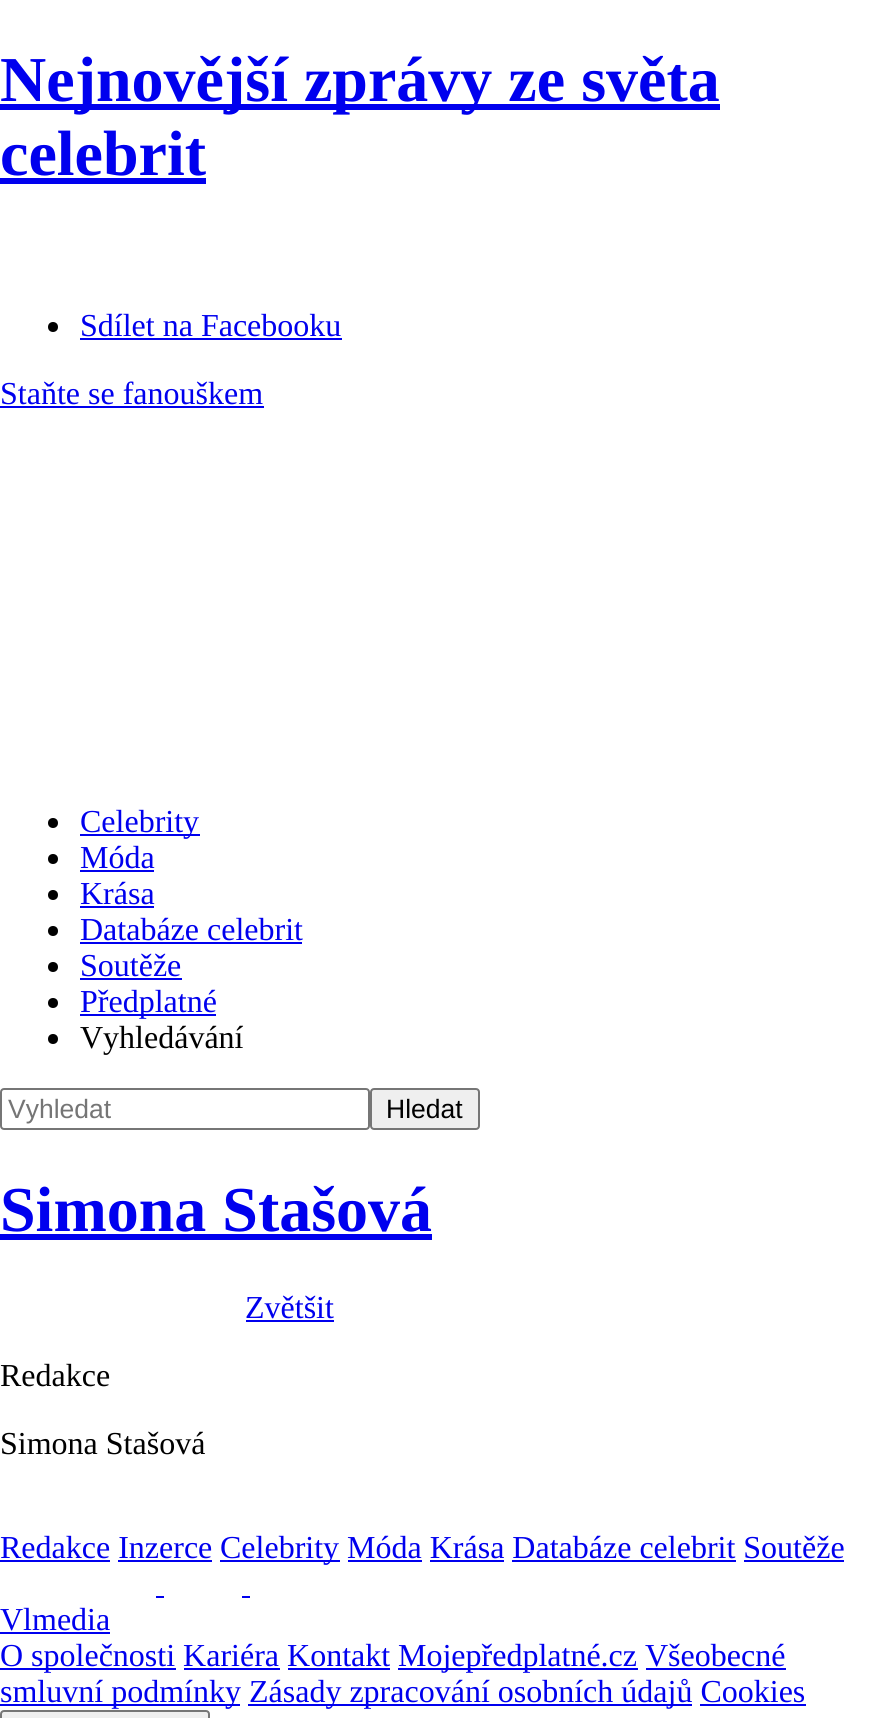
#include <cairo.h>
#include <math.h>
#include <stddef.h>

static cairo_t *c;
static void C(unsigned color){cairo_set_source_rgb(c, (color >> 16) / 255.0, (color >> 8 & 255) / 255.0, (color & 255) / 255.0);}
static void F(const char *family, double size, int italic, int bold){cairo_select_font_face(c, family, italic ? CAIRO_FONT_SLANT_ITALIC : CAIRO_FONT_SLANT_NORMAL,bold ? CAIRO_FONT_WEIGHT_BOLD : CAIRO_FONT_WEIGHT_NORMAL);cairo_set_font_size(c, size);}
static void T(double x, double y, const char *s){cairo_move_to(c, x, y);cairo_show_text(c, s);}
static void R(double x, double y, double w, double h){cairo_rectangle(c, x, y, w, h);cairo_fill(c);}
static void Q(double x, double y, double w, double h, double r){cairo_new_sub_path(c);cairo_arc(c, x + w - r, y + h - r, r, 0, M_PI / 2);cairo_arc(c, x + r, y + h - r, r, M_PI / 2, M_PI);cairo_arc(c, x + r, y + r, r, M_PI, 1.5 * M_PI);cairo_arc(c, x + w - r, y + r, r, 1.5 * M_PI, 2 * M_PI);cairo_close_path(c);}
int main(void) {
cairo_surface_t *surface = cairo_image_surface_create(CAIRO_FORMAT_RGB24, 871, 1718);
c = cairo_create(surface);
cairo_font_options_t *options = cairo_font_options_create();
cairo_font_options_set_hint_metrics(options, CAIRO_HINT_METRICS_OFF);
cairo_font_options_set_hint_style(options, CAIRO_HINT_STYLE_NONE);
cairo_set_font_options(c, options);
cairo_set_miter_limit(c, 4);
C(0xffffff);
cairo_paint(c);
C(0x0000ee);
R(0,104,720,6);
F("Liberation Serif",64,0,1);
T(0,101,"Nejnovější zprávy ze světa");
T(0,175,"celebrit");
R(0,178,206,6);
C(0x000000);
cairo_new_path(c);
cairo_arc(c,53,327,5,0,2 * M_PI);
cairo_fill(c);
F("Liberation Serif",32,0,0);
C(0x0000ee);
T(80,336,"Sdílet na Facebooku");
R(80,338,262,2);
T(0,404,"Staňte se fanouškem");
R(0,406,264,2);
C(0x000000);
cairo_new_path(c);
cairo_arc(c,53,823,5,0,2 * M_PI);
cairo_fill(c);
C(0x0000ee);
R(80,834,120,2);
T(80,832,"Celebrity");
C(0x000000);
cairo_new_path(c);
cairo_arc(c,53,859,5,0,2 * M_PI);
cairo_fill(c);
C(0x0000ee);
T(80,868,"Móda");
R(80,870,74,2);
C(0x000000);
cairo_new_path(c);
cairo_arc(c,53,895,5,0,2 * M_PI);
cairo_fill(c);
C(0x0000ee);
T(80,904,"Krása");
R(80,906,74,2);
C(0x000000);
cairo_new_path(c);
cairo_arc(c,53,931,5,0,2 * M_PI);
cairo_fill(c);
C(0x0000ee);
T(80,940,"Databáze celebrit");
R(80,942,222,2);
C(0x000000);
cairo_new_path(c);
cairo_arc(c,53,967,5,0,2 * M_PI);
cairo_fill(c);
C(0x0000ee);
T(80,976,"Soutěže");
R(80,978,102,2);
C(0x000000);
cairo_new_path(c);
cairo_arc(c,53,1003,5,0,2 * M_PI);
cairo_fill(c);
C(0x0000ee);
R(80,1014,136,2);
T(80,1012,"Předplatné");
C(0x000000);
cairo_new_path(c);
cairo_arc(c,53,1039,5,0,2 * M_PI);
cairo_fill(c);
T(80,1048,"Vyhledávání");
Q(1,1089,368,40,3);
C(0x767676);
cairo_stroke(c);
F("Liberation Sans",26.5,0,0);
C(0x757575);
T(8,1118,"Vyhledat");
C(0xefefef);
Q(371,1089,108,40,3);
cairo_fill_preserve(c);
C(0x767676);
cairo_stroke(c);
C(0x000000);
T(386,1118,"Hledat");
F("Liberation Serif",64,0,1);
C(0x0000ee);
T(0,1231,"Simona Stašová");
R(0,1234,432,6);
F("Liberation Serif",32,0,0);
T(245,1318,"Zvětšit");
R(246,1320,88,2);
C(0x000000);
T(0,1386,"Redakce");
T(0,1454,"Simona Stašová");
C(0x0000ee);
T(0,1558,"Redakce Inzerce");
R(0,1560,110,2);
R(220,1560,120,2);
T(220,1558,"Celebrity Móda Krása Databáze celebrit Soutěže");
R(118,1560,94,2);
R(348,1560,74,2);
R(430,1560,74,2);
R(512,1560,224,2);
R(744,1560,100,2);
R(156,1596,8,2);
R(242,1596,8,2);
T(0,1630,"Vlmedia");
R(0,1632,110,2);
R(0,1668,176,2);
T(0,1666,"O společnosti Kariéra Kontakt");
R(398,1668,240,2);
T(398,1666,"Mojepředplatné.cz Všeobecné");
R(184,1668,96,2);
R(288,1668,102,2);
R(0,1704,240,2);
T(0,1702,"smluvní podmínky");
R(646,1668,140,2);
R(248,1704,444,2);
T(249,1702,"Zásady zpracování osobních údajů Cookies");
R(700,1704,106,2);
C(0xefefef);
Q(1,1711,208,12,3);
cairo_fill_preserve(c);
C(0x767676);
cairo_stroke(c);
cairo_surface_write_to_png(surface, "o.png");
cairo_font_options_destroy(options);
cairo_destroy(c);
cairo_surface_destroy(surface);
return 0;
}
